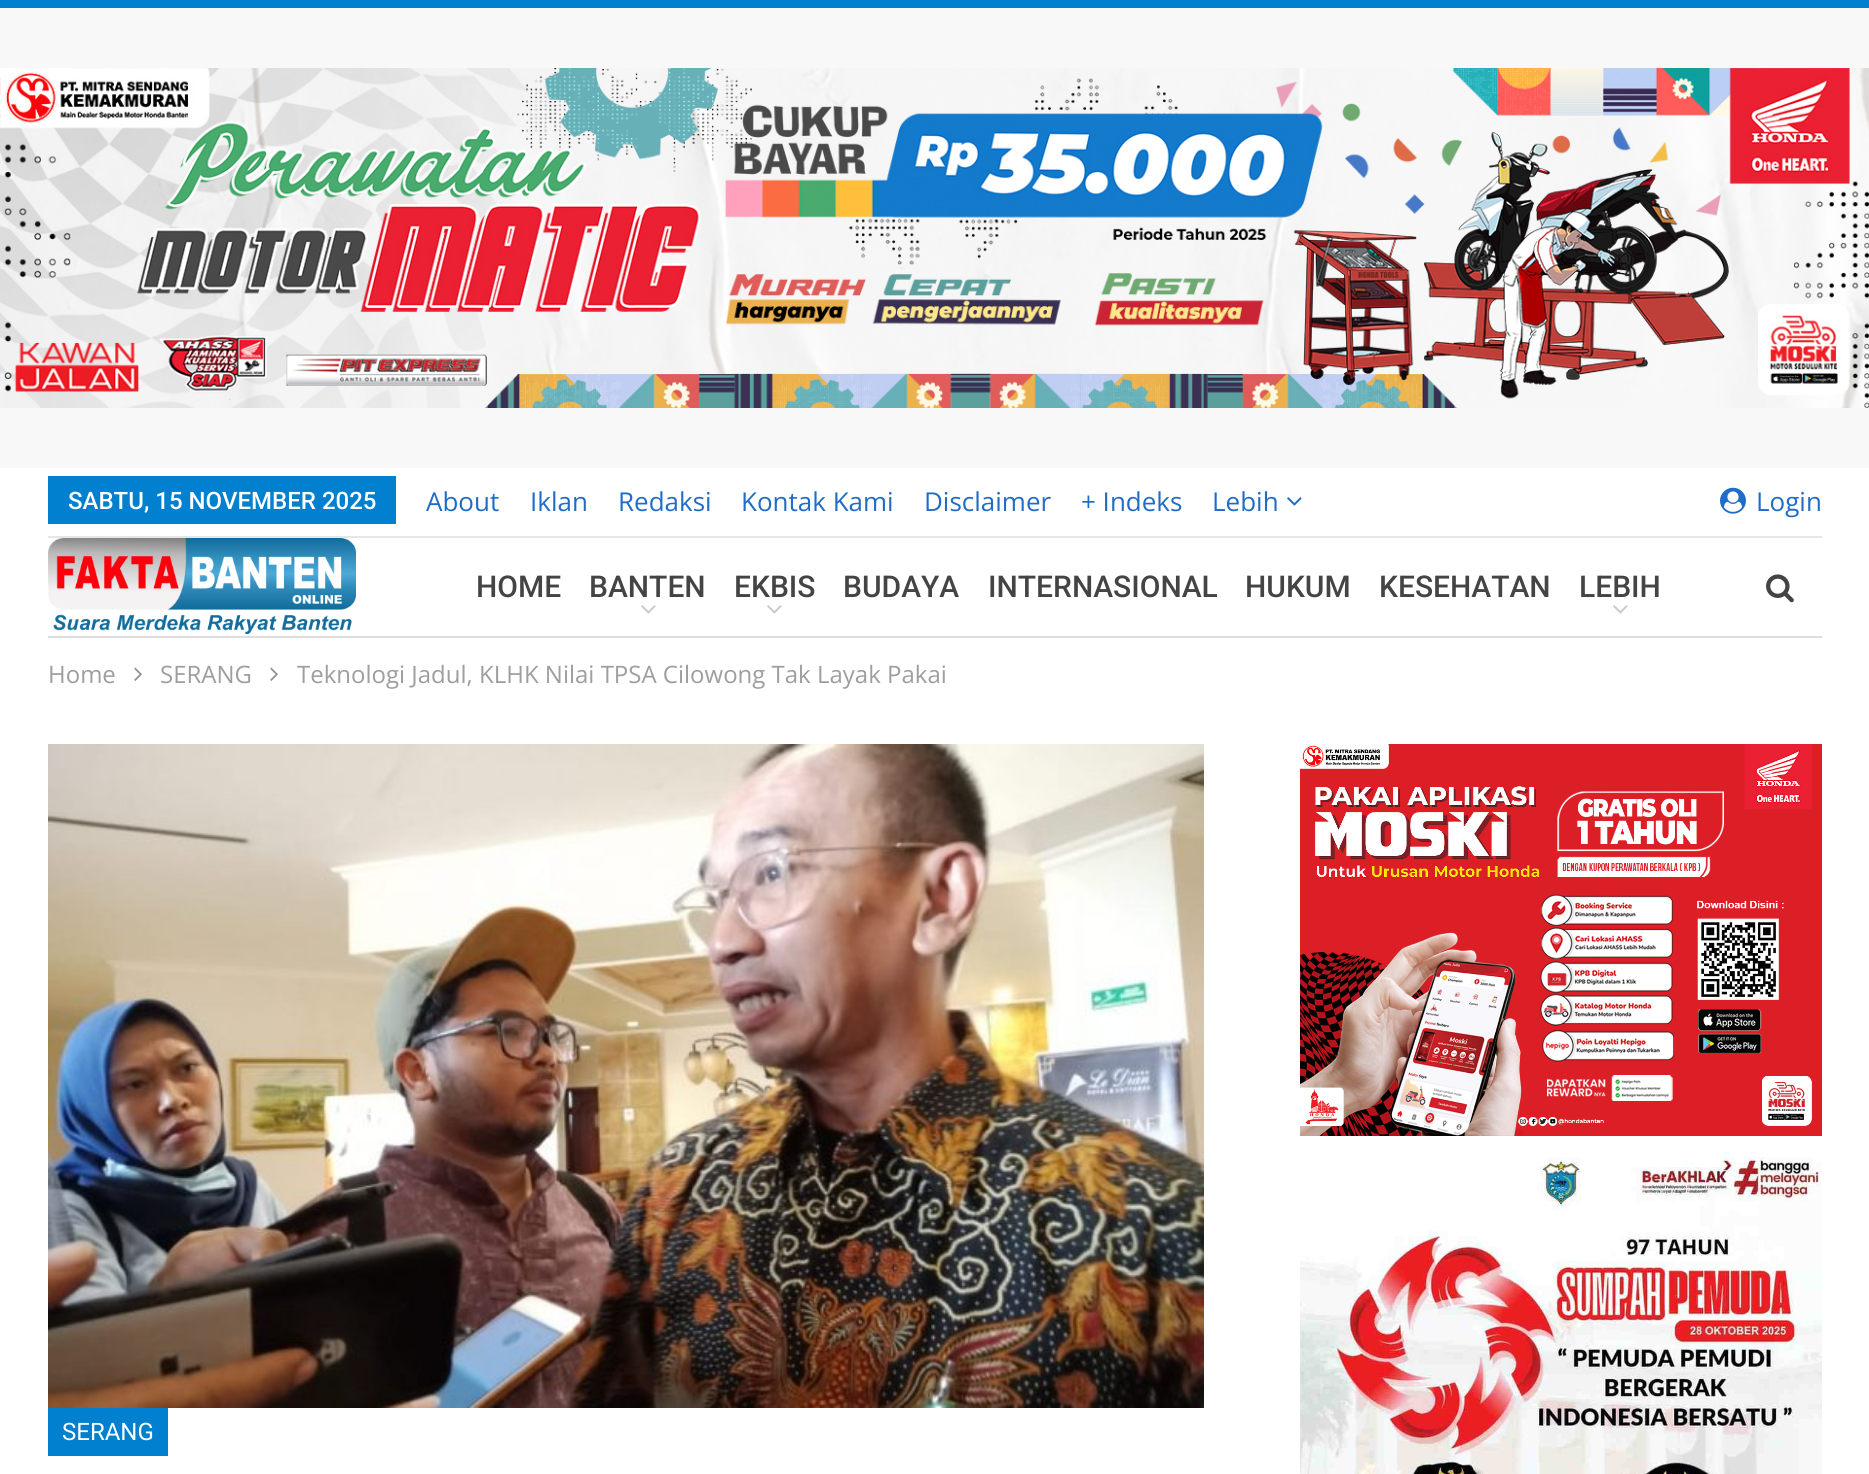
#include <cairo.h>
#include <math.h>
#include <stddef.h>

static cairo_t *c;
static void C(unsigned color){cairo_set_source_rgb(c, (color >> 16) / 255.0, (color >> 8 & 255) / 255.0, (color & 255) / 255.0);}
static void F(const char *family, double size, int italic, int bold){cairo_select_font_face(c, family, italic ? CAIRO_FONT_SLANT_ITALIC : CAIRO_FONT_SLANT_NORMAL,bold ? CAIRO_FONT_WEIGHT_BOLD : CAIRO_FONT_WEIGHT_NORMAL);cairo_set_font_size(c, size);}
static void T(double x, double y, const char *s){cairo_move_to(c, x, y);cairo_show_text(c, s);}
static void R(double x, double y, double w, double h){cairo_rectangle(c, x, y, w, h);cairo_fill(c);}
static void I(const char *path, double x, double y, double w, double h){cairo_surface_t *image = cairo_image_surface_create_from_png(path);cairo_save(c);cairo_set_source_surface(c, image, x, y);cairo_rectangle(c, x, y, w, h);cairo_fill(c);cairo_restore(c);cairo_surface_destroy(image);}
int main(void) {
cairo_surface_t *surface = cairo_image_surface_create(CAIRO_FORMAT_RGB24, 1869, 1474);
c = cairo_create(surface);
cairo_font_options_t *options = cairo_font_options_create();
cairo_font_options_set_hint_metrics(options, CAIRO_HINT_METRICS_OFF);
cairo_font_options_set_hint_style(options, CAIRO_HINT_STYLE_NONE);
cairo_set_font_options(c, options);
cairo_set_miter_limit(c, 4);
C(0xffffff);
cairo_paint(c);
C(0x0080ce);
R(0,0,1869,8);
C(0xf8f8f8);
R(0,8,1869,460);
I("1.png",0,68,1869,340);
C(0xe6e6e6);
R(48,536,1774,2);
C(0x0080ce);
R(48,476,348,48);
F("Roboto Medium",24,0,0);
C(0xffffff);
T(68,509,"SABTU, 15 NOVEMBER 2025");
F("Open Sans",26,0,0);
C(0x1f6dc6);
T(426,511,"About");
T(530,511,"Iklan");
T(618,511,"Redaksi");
T(741,511,"Kontak Kami");
T(924,511,"Disclaimer");
T(1081,511,"+ Indeks");
T(1212,511,"Lebih");
I("2.png",1287,497,15,9);
I("3.png",1720,487,26,27);
T(1756,511,"Login");
C(0xdedede);
R(48,636,1774,2);
I("4.png",48,538,308,96);
F("Roboto Medium",30,0,0);
C(0x444444);
T(476,597,"HOME");
T(589,597,"BANTEN");
I("5.png",641,605,15,9);
T(734,597,"EKBIS");
I("5.png",767,605,15,9);
T(843,597,"BUDAYA");
T(988,597,"INTERNASIONAL");
T(1245,597,"HUKUM");
T(1379,597,"KESEHATAN");
T(1579,597,"LEBIH");
I("5.png",1613,605,15,9);
I("6.png",1766,574,28,29);
F("Open Sans",24,0,0);
C(0x9e9e9e);
T(48,683,"Home");
I("7.png",134,667,8,14);
T(160,683,"SERANG");
I("7.png",270,667,8,14);
T(297,683,"Teknologi Jadul, KLHK Nilai TPSA Cilowong Tak Layak Pakai");
I("8.png",48,744,1156,664);
C(0x0080ce);
R(48,1408,120,48);
F("Roboto",24,0,0);
C(0xffffff);
T(62,1440,"SERANG");
I("9.png",1300,744,522,392);
I("10.png",1300,1152,522,322);
cairo_surface_write_to_png(surface, "o.png");
cairo_font_options_destroy(options);
cairo_destroy(c);
cairo_surface_destroy(surface);
return 0;
}
